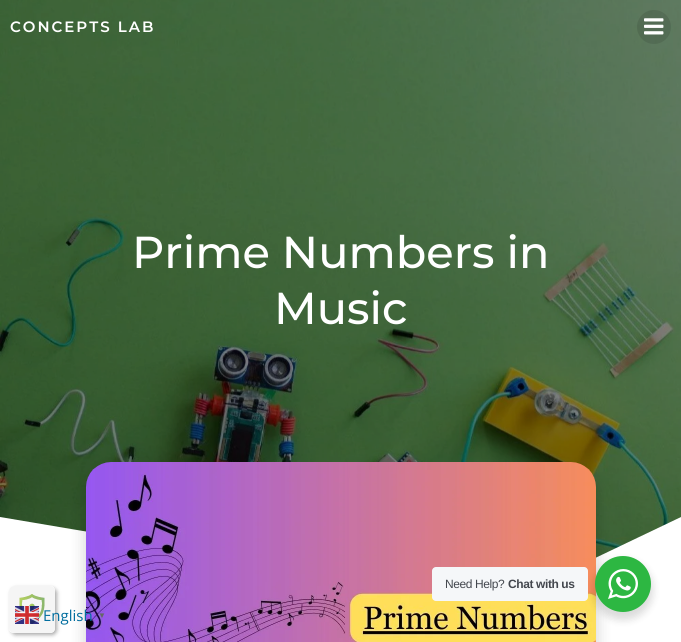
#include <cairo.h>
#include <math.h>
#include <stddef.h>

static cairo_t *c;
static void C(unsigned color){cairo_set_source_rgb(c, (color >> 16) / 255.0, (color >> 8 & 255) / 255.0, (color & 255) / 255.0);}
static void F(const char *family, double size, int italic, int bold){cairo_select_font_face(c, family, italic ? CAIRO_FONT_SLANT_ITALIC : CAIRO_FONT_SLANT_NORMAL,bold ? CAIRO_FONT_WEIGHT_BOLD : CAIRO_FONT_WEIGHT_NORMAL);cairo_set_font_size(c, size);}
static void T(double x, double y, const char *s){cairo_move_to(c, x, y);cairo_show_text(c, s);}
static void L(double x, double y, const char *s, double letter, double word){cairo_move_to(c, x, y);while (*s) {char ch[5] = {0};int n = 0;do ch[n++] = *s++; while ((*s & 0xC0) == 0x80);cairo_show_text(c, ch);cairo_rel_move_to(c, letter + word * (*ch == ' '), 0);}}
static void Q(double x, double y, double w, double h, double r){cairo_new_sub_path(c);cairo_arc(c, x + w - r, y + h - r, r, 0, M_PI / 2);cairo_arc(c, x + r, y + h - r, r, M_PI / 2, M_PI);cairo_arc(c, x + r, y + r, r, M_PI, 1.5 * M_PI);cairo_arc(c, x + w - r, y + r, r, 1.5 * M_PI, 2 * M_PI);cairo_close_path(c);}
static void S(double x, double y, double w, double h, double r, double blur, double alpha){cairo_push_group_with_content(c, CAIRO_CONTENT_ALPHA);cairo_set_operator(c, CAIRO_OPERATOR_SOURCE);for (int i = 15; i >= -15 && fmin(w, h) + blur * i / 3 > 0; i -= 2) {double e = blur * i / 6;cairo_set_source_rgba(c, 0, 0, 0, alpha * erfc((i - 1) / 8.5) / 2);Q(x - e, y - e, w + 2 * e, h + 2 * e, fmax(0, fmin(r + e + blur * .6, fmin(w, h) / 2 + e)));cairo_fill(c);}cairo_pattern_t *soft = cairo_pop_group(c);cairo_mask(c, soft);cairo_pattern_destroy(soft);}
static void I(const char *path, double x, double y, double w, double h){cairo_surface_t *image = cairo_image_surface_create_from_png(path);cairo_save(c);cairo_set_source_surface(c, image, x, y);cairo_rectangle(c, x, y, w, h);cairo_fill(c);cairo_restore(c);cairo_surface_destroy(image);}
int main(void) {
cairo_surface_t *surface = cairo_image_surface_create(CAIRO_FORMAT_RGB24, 681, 642);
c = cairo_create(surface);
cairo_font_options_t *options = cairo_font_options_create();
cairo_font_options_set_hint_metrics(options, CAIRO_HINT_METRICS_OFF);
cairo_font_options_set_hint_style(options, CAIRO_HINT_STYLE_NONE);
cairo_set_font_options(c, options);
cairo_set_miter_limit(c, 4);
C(0xffffff);
cairo_paint(c);
I("2.png",0,0,681,558);
F("Montserrat SemiBold",15,0,0);
C(0xffffff);
L(10,32,"CONCEPTS LAB",2,0);
cairo_set_source_rgba(c,0,0,0,0.1);
cairo_new_path(c);
cairo_arc(c,654,27,17,0,2 * M_PI);
cairo_fill(c);
I("1.png",644,18,20,17);
F("Montserrat Medium",44.75,0,0);
C(0xffffff);
T(132,268,"Prime Numbers in");
T(274,324,"Music");
cairo_new_path(c);
cairo_move_to(c,503,602);
cairo_line_to(c,0,517);
cairo_line_to(c,0,607);
cairo_line_to(c,681,607);
cairo_line_to(c,681,517);
cairo_close_path(c);
cairo_fill(c);
cairo_save(c);
cairo_rectangle(c,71,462,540,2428);
cairo_clip(c);
C(0x000000);
S(84,470,514,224,29,7.5,.15);
cairo_restore(c);
I("3.png",86,462,510,180);
cairo_save(c);
cairo_set_fill_rule(c,CAIRO_FILL_RULE_EVEN_ODD);
cairo_new_path(c);
cairo_move_to(c,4,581);
cairo_line_to(c,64,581);
cairo_line_to(c,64,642);
cairo_line_to(c,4,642);
cairo_close_path(c);
cairo_move_to(c,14,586);
cairo_line_to(c,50,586);
cairo_curve_to(c,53,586,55,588,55,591);
cairo_line_to(c,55,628);
cairo_curve_to(c,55,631,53,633,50,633);
cairo_line_to(c,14,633);
cairo_curve_to(c,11,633,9,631,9,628);
cairo_line_to(c,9,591);
cairo_curve_to(c,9,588,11,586,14,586);
cairo_close_path(c);
cairo_clip(c);
C(0x4d4d4d);
S(11,588,46,47,5,2,.47);
cairo_restore(c);
cairo_set_source_rgba(c,0.961,0.961,0.961,0.99);
Q(9,586,46,47,5);
cairo_fill(c);
I("4.png",19,594,26,30);
I("5.png",15,606,24,18);
F("Open Sans",15,0,0);
C(0x026e9f);
T(43,621,"English");
F("Liberation Serif",8,0,1);
C(0x666666);
T(98,618,"▼");
C(0x000000);
S(593,560,60,60,30,4,.14);
C(0xf5f7f9);
Q(432,567,156,34,4);
cairo_fill(c);
F("Liberation Sans",12,0,0);
C(0x43474e);
L(445,588,"Need Help?",-.4,0);
F("Liberation Sans",12,0,1);
L(508,588,"Chat with us",-.4,0);
C(0x2db742);
cairo_new_path(c);
cairo_arc(c,623,584,28,0,2 * M_PI);
cairo_fill(c);
I("6.png",608,569,30,30);
cairo_surface_write_to_png(surface, "o.png");
cairo_font_options_destroy(options);
cairo_destroy(c);
cairo_surface_destroy(surface);
return 0;
}
